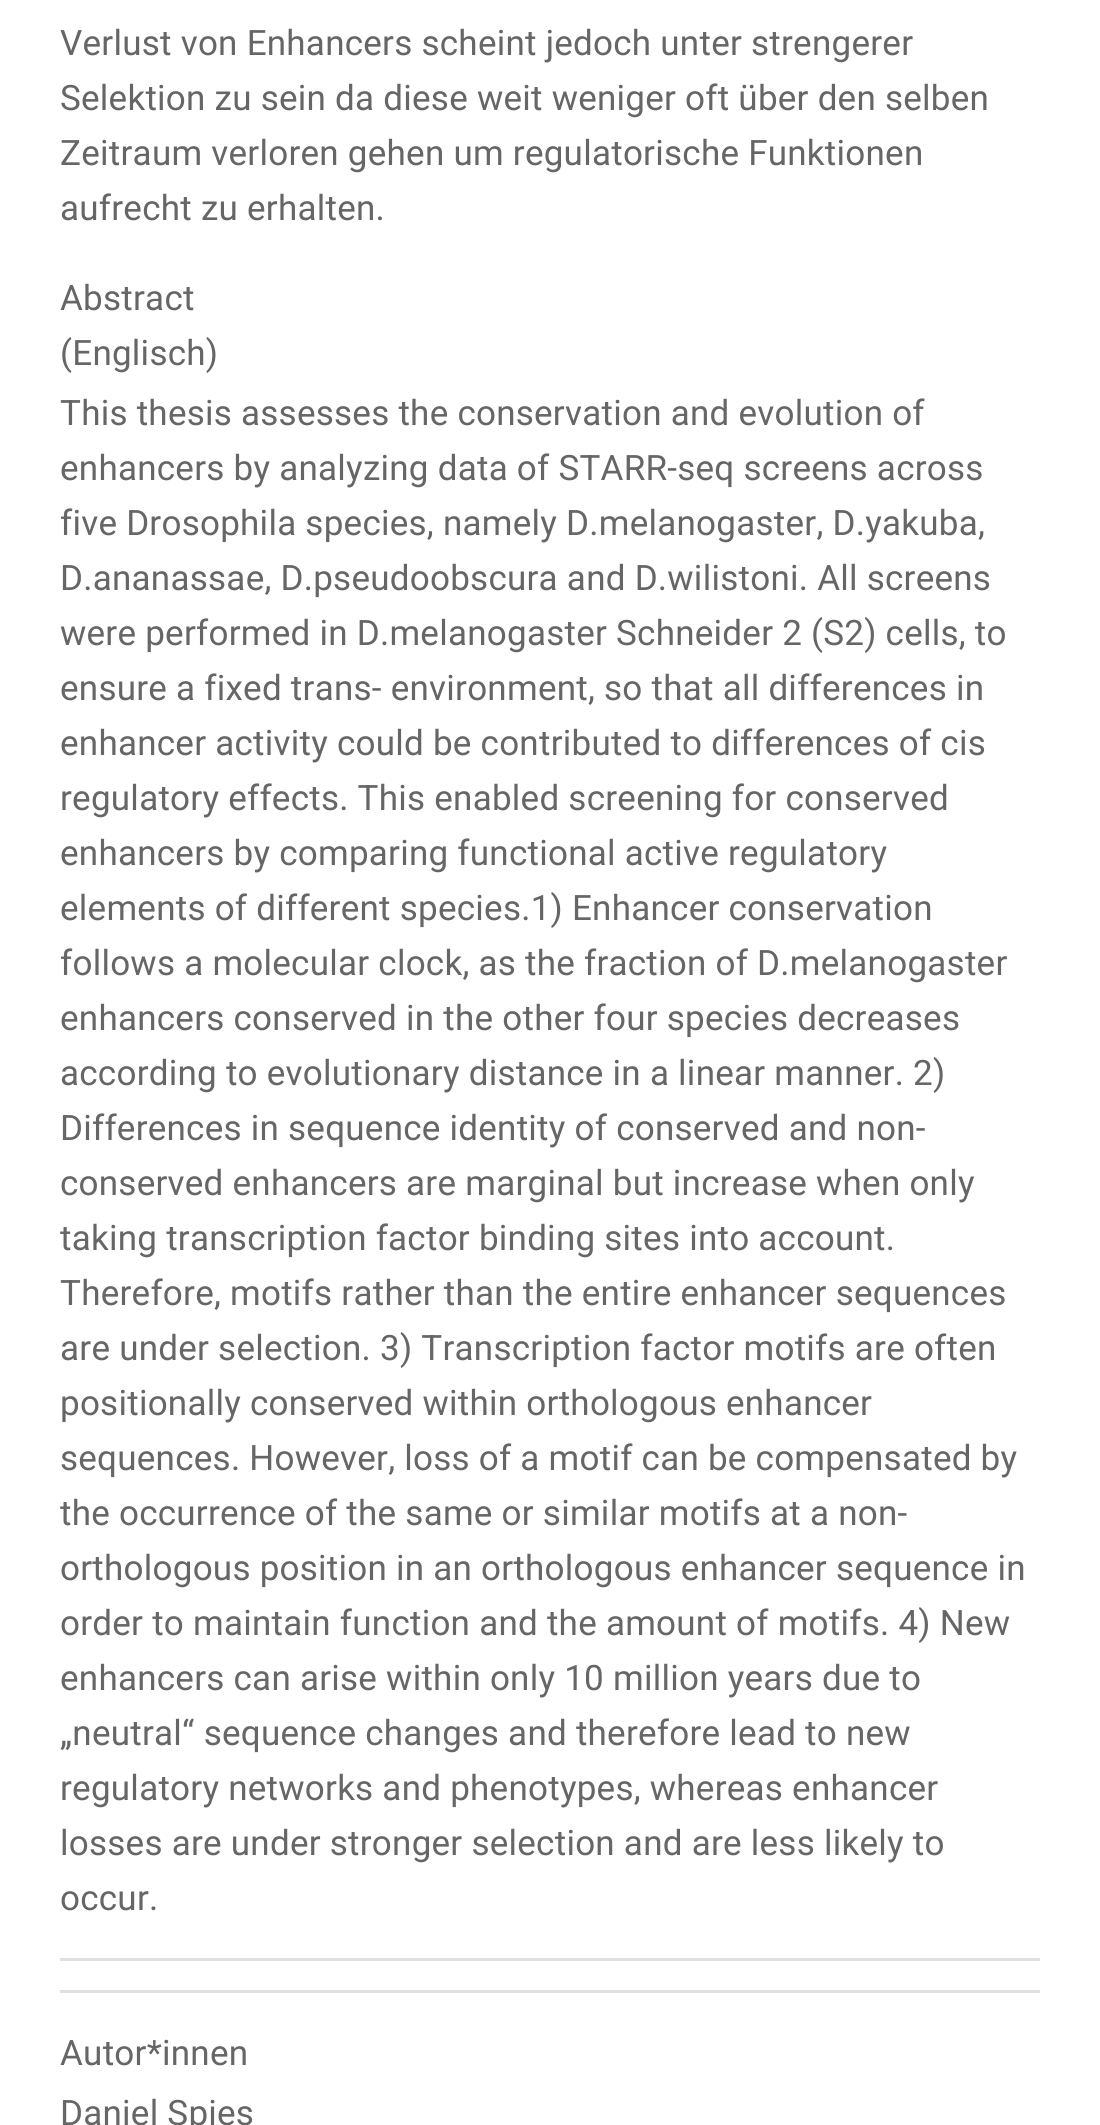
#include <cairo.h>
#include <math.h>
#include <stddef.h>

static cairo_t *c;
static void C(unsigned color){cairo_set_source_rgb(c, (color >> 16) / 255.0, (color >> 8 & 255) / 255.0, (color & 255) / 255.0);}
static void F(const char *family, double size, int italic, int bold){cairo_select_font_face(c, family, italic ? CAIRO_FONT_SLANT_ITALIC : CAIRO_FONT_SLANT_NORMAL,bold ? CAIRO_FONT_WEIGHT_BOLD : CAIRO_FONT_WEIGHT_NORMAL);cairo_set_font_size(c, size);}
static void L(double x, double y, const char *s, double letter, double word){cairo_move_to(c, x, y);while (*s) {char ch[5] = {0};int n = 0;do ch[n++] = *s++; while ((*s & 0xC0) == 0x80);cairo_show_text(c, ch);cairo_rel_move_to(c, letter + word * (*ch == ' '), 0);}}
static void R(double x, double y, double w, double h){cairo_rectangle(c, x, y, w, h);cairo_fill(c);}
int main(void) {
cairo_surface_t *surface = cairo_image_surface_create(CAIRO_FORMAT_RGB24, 1100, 2125);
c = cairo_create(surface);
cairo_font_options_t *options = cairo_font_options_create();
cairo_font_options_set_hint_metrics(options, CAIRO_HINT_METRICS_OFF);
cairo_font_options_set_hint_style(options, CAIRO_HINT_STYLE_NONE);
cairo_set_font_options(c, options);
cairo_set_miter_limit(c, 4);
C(0xffffff);
cairo_paint(c);
F("Roboto",35,0,0);
C(0x666666);
L(60,55,"Verlust von Enhancers scheint jedoch unter strengerer",.25,0);
L(60,110,"Selektion zu sein da diese weit weniger oft über den selben",.25,0);
L(60,165,"Zeitraum verloren gehen um regulatorische Funktionen",.25,0);
L(60,220,"aufrecht zu erhalten.",.25,0);
L(60,310,"Abstract",.25,0);
L(60,365,"(Englisch)",.25,0);
L(60,425,"This thesis assesses the conservation and evolution of",.25,0);
L(60,480,"enhancers by analyzing data of STARR-seq screens across",.25,0);
L(60,535,"five Drosophila species, namely D.melanogaster, D.yakuba,",.25,0);
L(60,590,"D.ananassae, D.pseudoobscura and D.wilistoni. All screens",.25,0);
L(60,645,"were performed in D.melanogaster Schneider 2 (S2) cells, to",.25,0);
L(60,700,"ensure a fixed trans- environment, so that all differences in",.25,0);
L(60,755,"enhancer activity could be contributed to differences of cis",.25,0);
L(60,810,"regulatory effects. This enabled screening for conserved",.25,0);
L(60,865,"enhancers by comparing functional active regulatory",.25,0);
L(60,920,"elements of different species.1) Enhancer conservation",.25,0);
L(60,975,"follows a molecular clock, as the fraction of D.melanogaster",.25,0);
L(60,1030,"enhancers conserved in the other four species decreases",.25,0);
L(60,1085,"according to evolutionary distance in a linear manner. 2)",.25,0);
L(60,1140,"Differences in sequence identity of conserved and non-",.25,0);
L(60,1195,"conserved enhancers are marginal but increase when only",.25,0);
L(60,1250,"taking transcription factor binding sites into account.",.25,0);
L(60,1305,"Therefore, motifs rather than the entire enhancer sequences",.25,0);
L(60,1360,"are under selection. 3) Transcription factor motifs are often",.25,0);
L(60,1415,"positionally conserved within orthologous enhancer",.25,0);
L(60,1470,"sequences. However, loss of a motif can be compensated by",.25,0);
L(60,1525,"the occurrence of the same or similar motifs at a non-",.25,0);
L(60,1580,"orthologous position in an orthologous enhancer sequence in",.25,0);
L(60,1635,"order to maintain function and the amount of motifs. 4) New",.25,0);
L(60,1690,"enhancers can arise within only 10 million years due to",.25,0);
L(60,1745,"„neutral“ sequence changes and therefore lead to new",.25,0);
L(60,1800,"regulatory networks and phenotypes, whereas enhancer",.25,0);
L(60,1855,"losses are under stronger selection and are less likely to",.25,0);
L(60,1910,"occur.",.25,0);
C(0xe0e0e0);
R(60,1958,980,3);
R(60,1990,980,3);
C(0x666666);
L(60,2065,"Autor*innen",.25,0);
L(60,2125,"Daniel Spies",.25,0);
cairo_surface_write_to_png(surface, "o.png");
cairo_font_options_destroy(options);
cairo_destroy(c);
cairo_surface_destroy(surface);
return 0;
}
